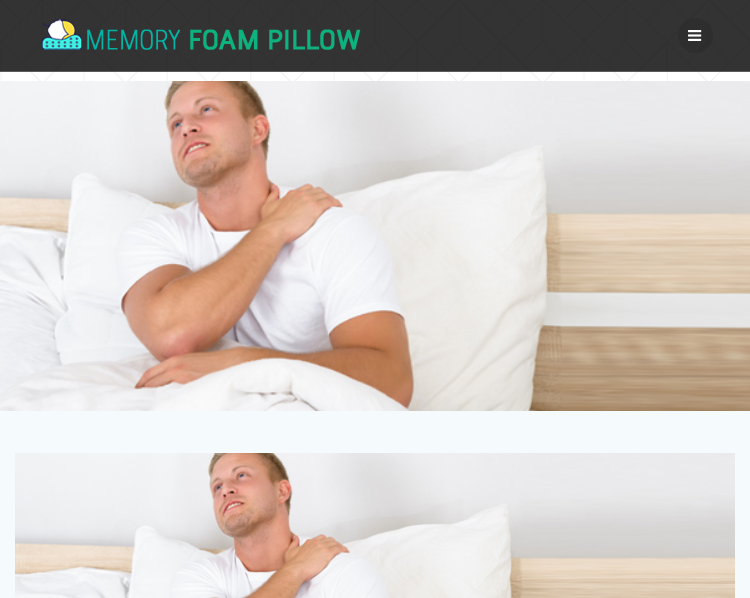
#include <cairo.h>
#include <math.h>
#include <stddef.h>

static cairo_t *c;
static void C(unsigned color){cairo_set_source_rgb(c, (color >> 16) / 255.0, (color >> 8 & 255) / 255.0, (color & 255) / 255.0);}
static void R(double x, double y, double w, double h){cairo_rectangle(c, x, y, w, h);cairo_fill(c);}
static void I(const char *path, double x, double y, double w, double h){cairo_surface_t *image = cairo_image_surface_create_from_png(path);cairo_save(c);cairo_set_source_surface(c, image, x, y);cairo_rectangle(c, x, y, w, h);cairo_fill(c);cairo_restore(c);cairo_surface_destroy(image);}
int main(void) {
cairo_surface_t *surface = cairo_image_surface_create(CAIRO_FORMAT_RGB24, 750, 598);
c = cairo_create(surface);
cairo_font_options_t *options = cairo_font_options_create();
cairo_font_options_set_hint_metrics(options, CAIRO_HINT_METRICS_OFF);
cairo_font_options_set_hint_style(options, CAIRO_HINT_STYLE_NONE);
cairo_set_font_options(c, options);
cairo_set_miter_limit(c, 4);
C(0xffffff);
cairo_paint(c);
I("1.png",0,0,750,81);
cairo_set_source_rgba(c,0,0,0,0.8);
R(0,0,750,72);
cairo_set_source_rgba(c,1,1,1,0.2);
R(0,71,750,1);
I("2.png",42,19,319,31);
cairo_set_source_rgba(c,0,0,0,0.1);
cairo_arc(c,695.5,35.5,17.5,0,2 * M_PI);
cairo_fill(c);
I("3.png",688,30,14,11);
I("4.png",0,81,750,330);
C(0xf5fafd);
R(0,411,750,187);
I("5.png",15,453,720,145);
cairo_surface_write_to_png(surface, "o.png");
cairo_font_options_destroy(options);
cairo_destroy(c);
cairo_surface_destroy(surface);
return 0;
}
